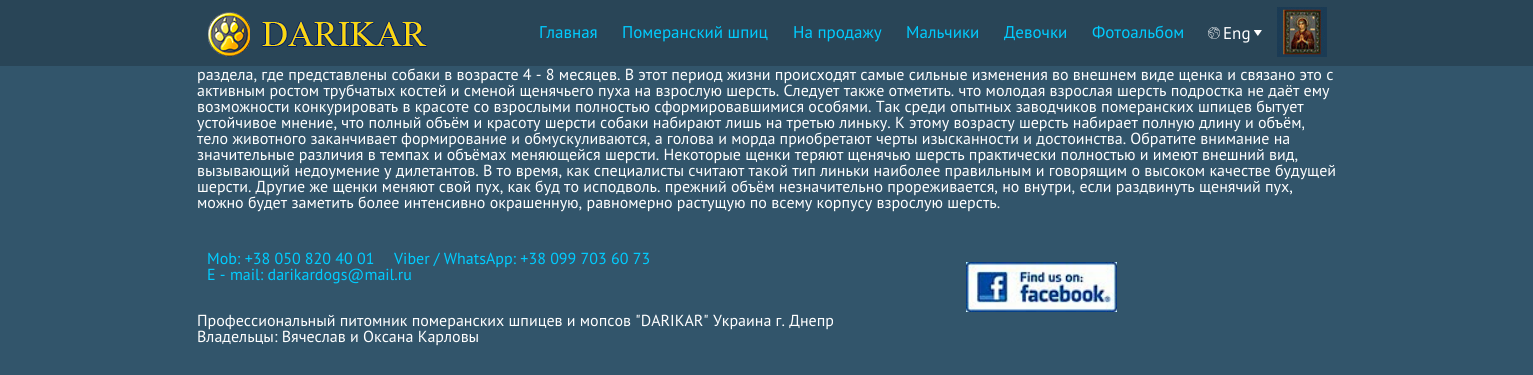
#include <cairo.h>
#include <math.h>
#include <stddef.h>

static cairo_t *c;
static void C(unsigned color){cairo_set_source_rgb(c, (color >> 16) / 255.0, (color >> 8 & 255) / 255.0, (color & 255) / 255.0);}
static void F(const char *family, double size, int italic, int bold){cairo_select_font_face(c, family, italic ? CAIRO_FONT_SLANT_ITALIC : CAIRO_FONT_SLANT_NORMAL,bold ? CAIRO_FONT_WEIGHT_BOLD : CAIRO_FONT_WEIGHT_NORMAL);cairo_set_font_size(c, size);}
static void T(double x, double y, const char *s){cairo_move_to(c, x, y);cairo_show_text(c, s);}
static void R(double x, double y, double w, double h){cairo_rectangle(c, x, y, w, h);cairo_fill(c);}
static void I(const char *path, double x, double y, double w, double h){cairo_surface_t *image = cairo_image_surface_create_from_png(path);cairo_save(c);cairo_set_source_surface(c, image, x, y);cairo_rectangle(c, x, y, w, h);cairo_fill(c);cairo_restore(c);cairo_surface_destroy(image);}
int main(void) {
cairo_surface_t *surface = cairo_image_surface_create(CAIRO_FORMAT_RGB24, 1533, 375);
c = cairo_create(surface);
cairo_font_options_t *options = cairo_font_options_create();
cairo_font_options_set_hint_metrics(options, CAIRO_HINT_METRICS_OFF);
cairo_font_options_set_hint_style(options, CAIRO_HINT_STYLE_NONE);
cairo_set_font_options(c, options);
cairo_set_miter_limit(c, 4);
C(0x32556b);
cairo_paint(c);
C(0x294557);
R(0,0,1533,66);
I("1.png",208,12,219,45);
F("PT Sans",17,0,0);
C(0x00ccff);
T(539,38,"Главная");
T(622,38,"Померанский шпиц");
T(793,38,"На продажу");
T(906,38,"Мальчики");
T(1004,38,"Девочки");
T(1092,38,"Фотоальбом");
I("2.png",1208,27,12,12);
C(0xffffff);
T(1223,39,"Eng");
I("3.png",1254,30,8,6);
I("4.png",1277,7,50,50);
F("PT Sans",16,0,0);
T(197,80,"раздела, где представлены собаки в возрасте 4 - 8 месяцев. В этот период жизни происходят самые сильные изменения во внешнем виде щенка и связано это с");
T(197,96,"активным ростом трубчатых костей и сменой щенячьего пуха на взрослую шерсть. Следует также отметить. что молодая взрослая шерсть подростка не даёт ему");
T(197,112,"возможности конкурировать в красоте со взрослыми полностью сформировавшимися особями. Так среди опытных заводчиков померанских шпицев бытует");
T(197,128,"устойчивое мнение, что полный объём и красоту шерсти собаки набирают лишь на третью линьку. К этому возрасту шерсть набирает полную длину и объём,");
T(197,144,"тело животного заканчивает формирование и обмускуливаются, а голова и морда приобретают черты изысканности и достоинства. Обратите внимание на");
T(197,160,"значительные различия в темпах и объёмах меняющейся шерсти. Некоторые щенки теряют щенячью шерсть практически полностью и имеют внешний вид,");
T(197,176,"вызывающий недоумение у дилетантов. В то время, как специалисты считают такой тип линьки наиболее правильным и говорящим о высоком качестве будущей");
T(197,192,"шерсти. Другие же щенки меняют свой пух, как буд то исподволь. прежний объём незначительно прореживается, но внутри, если раздвинуть щенячий пух,");
T(197,208,"можно будет заметить более интенсивно окрашенную, равномерно растущую по всему корпусу взрослую шерсть.");
C(0x00ccff);
T(207,264,"Mob: +38 050 820 40 01");
T(394,264,"Viber / WhatsApp: +38 099 703 60 73");
T(207,280,"Е - mail: darikardogs@mail.ru");
C(0xffffff);
T(197,326,"Профессиональный питомник померанских шпицев и мопсов \"DARIKAR\" Украина г. Днепр");
T(197,342,"Владельцы: Вячеслав и Оксана Карловы");
I("5.png",966,262,151,50);
cairo_surface_write_to_png(surface, "o.png");
cairo_font_options_destroy(options);
cairo_destroy(c);
cairo_surface_destroy(surface);
return 0;
}
